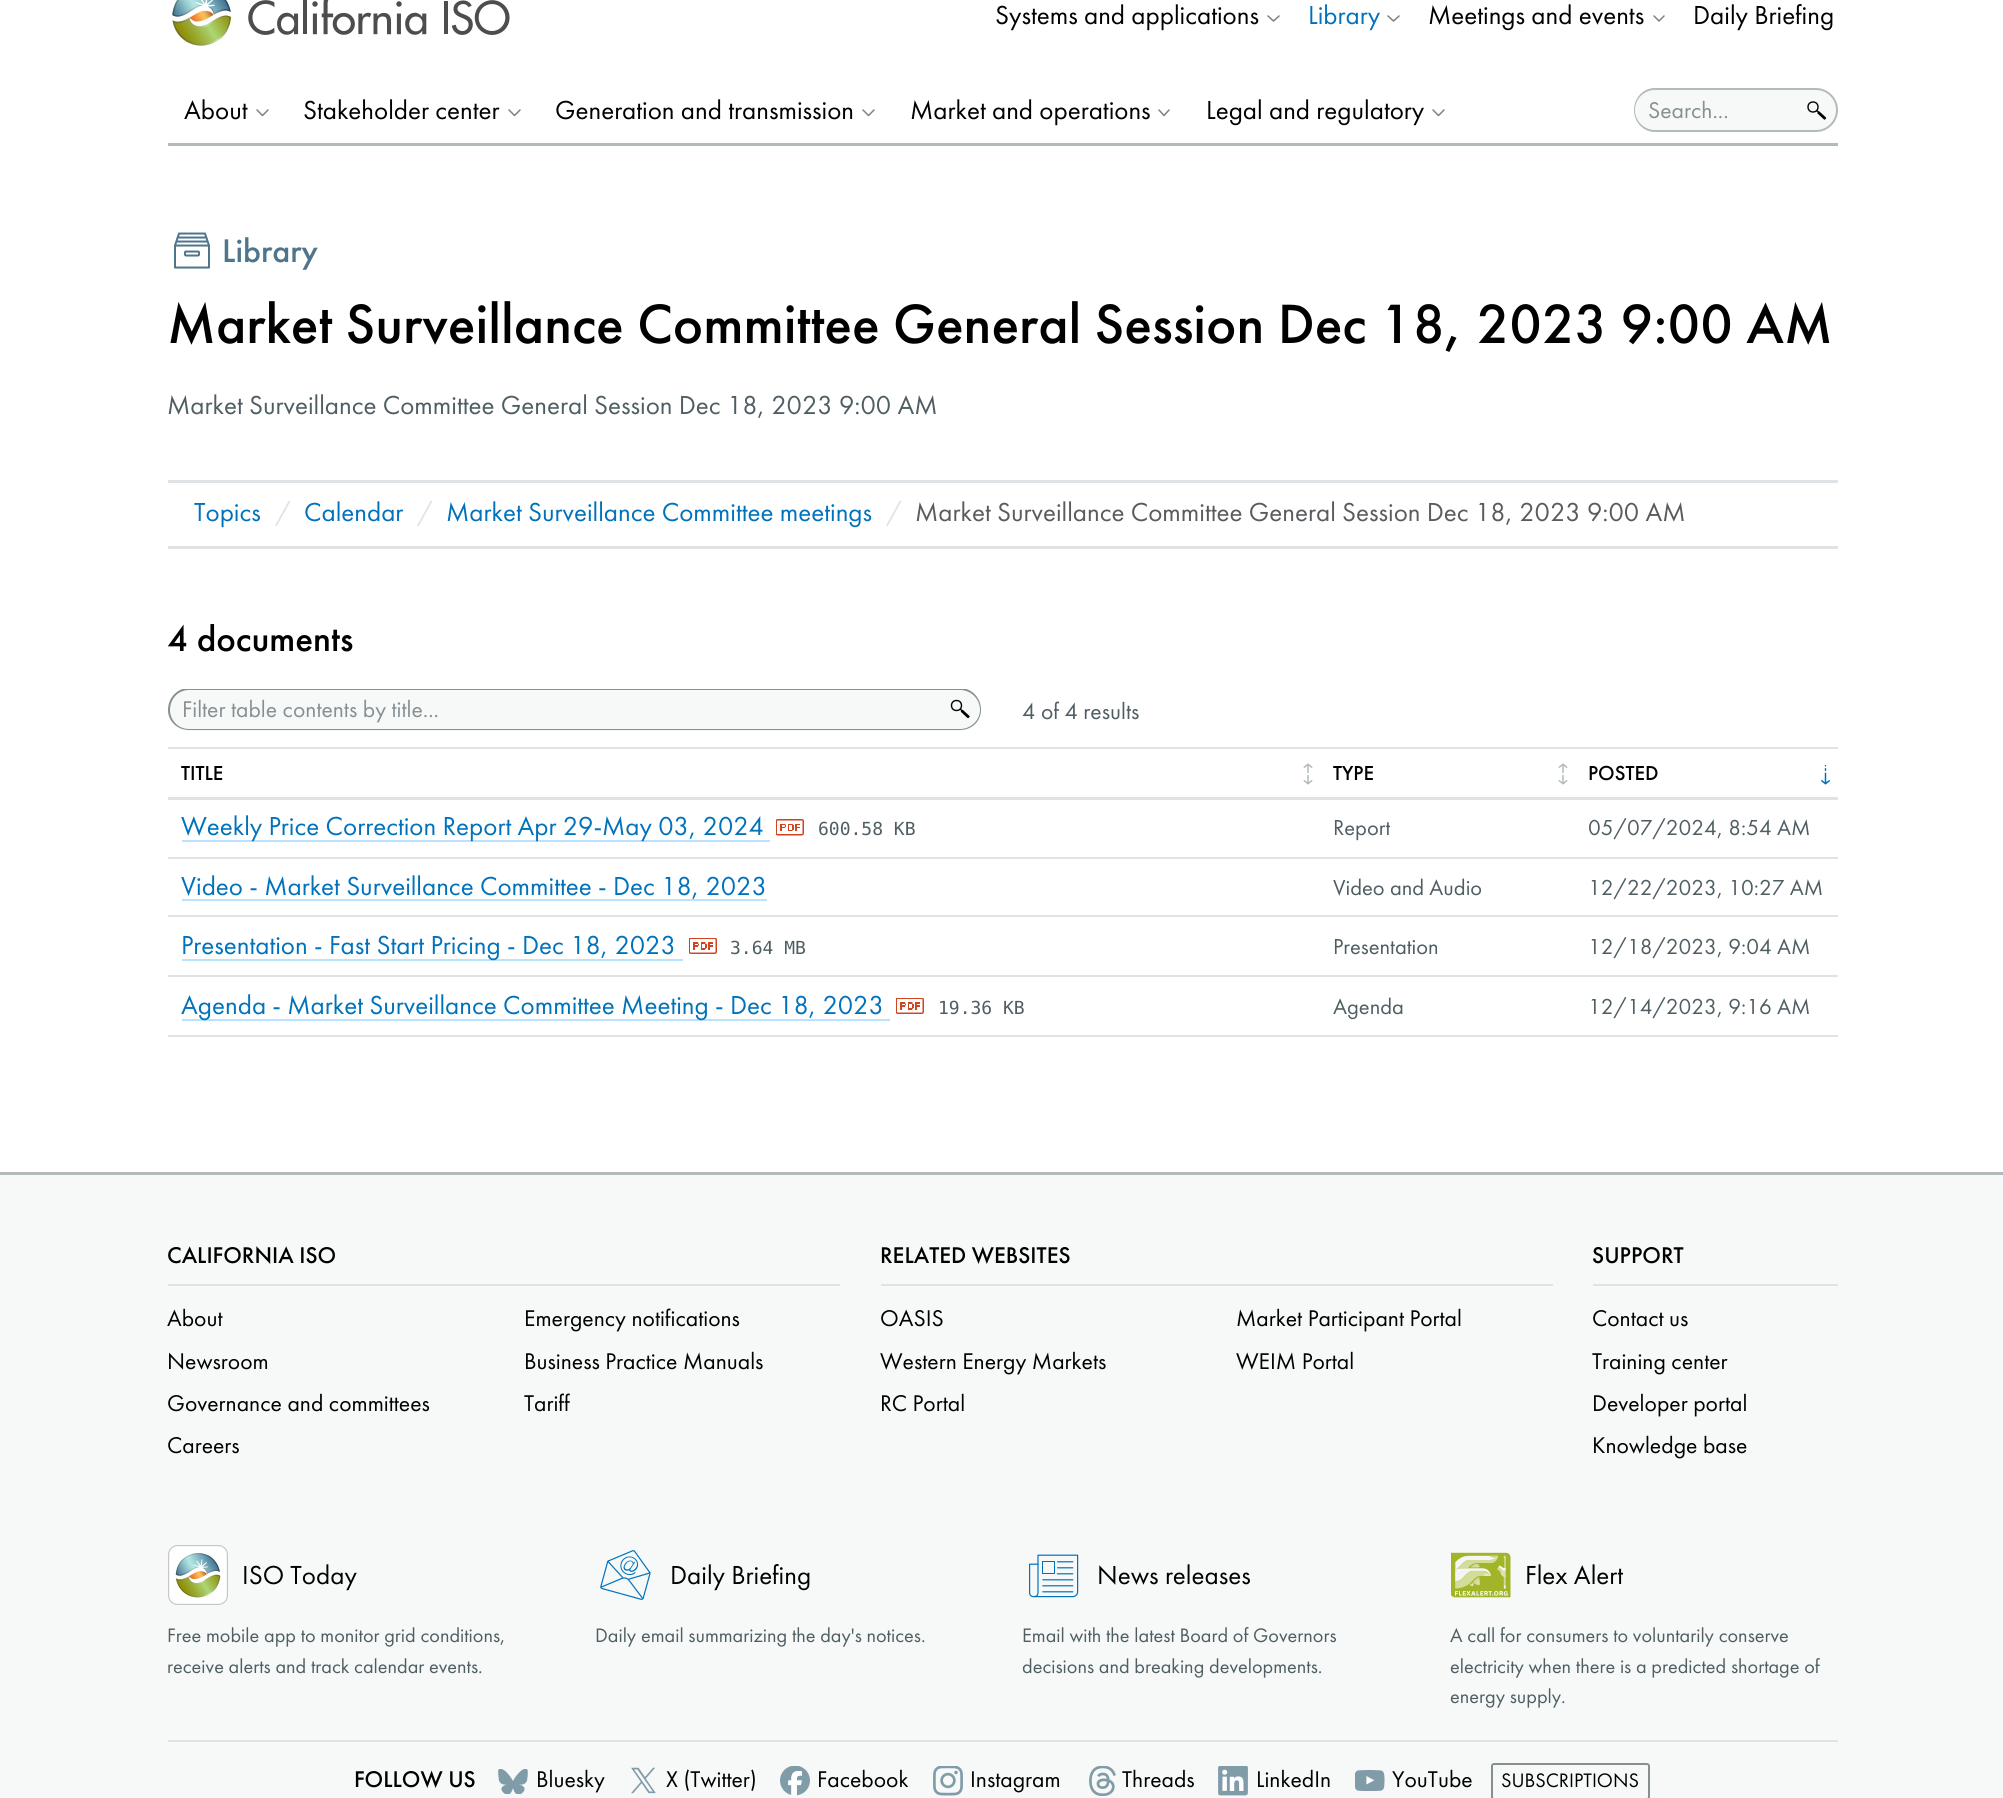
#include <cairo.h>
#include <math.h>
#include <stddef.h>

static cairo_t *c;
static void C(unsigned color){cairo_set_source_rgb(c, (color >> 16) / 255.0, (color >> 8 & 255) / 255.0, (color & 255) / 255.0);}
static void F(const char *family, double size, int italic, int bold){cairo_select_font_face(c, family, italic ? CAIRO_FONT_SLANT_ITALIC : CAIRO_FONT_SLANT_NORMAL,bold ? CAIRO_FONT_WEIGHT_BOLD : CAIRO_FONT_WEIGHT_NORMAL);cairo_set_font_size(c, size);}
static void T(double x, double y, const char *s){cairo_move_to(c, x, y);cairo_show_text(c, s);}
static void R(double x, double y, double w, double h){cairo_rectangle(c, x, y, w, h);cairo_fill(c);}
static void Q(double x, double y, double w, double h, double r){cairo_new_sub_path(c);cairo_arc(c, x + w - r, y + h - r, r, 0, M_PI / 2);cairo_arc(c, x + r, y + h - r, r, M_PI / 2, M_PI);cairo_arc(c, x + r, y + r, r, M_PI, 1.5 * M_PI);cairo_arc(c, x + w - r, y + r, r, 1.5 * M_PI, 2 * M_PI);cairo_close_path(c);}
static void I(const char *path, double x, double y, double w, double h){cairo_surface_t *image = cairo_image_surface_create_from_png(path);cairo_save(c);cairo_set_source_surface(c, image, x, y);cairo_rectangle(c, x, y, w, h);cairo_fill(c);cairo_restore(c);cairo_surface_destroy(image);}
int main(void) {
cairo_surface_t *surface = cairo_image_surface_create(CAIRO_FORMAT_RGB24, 2003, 1798);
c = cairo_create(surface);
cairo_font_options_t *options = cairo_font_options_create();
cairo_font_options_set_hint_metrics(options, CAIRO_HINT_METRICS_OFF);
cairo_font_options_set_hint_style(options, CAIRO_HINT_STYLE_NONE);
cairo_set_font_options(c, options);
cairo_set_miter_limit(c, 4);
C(0xffffff);
cairo_paint(c);
I("1.png",172,0,338,46);
F("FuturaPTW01",27,0,0);
C(0x000000);
T(995,24,"Systems and applications");
cairo_new_path(c);
cairo_move_to(c,1268,16);
cairo_line_to(c,1273.5,21);
cairo_line_to(c,1279,16);
C(0x808080);
cairo_set_line_width(c,1.5);
cairo_set_line_cap(c,CAIRO_LINE_CAP_ROUND);
cairo_set_line_join(c,CAIRO_LINE_JOIN_ROUND);
cairo_stroke(c);
C(0x0072bc);
T(1308,24,"Library");
cairo_new_path(c);
cairo_move_to(c,1388,16);
cairo_line_to(c,1393.5,21);
cairo_line_to(c,1399,16);
C(0x808080);
cairo_stroke(c);
C(0x000000);
T(1428,24,"Meetings and events");
cairo_new_path(c);
cairo_move_to(c,1654,16);
cairo_line_to(c,1659,21);
cairo_line_to(c,1664,16);
C(0x808080);
cairo_stroke(c);
C(0x000000);
T(1693,24,"Daily Briefing");
C(0xb3babc);
R(168,143,1670,3);
C(0x000000);
T(184,119,"About");
cairo_new_path(c);
cairo_move_to(c,257,110);
cairo_line_to(c,262.5,115.5);
cairo_line_to(c,268,110);
C(0x808080);
cairo_stroke(c);
C(0x000000);
T(303,119,"Stakeholder center");
cairo_new_path(c);
cairo_move_to(c,509,110);
cairo_line_to(c,514.5,115.5);
cairo_line_to(c,520,110);
C(0x808080);
cairo_stroke(c);
C(0x000000);
T(555,119,"Generation and transmission");
cairo_new_path(c);
cairo_move_to(c,863,110);
cairo_line_to(c,868.5,115.5);
cairo_line_to(c,874,110);
C(0x808080);
cairo_stroke(c);
C(0x000000);
T(910,119,"Market and operations");
cairo_new_path(c);
cairo_move_to(c,1159,110);
cairo_line_to(c,1164,115.5);
cairo_line_to(c,1169,110);
C(0x808080);
cairo_stroke(c);
C(0x000000);
T(1206,119,"Legal and regulatory");
cairo_new_path(c);
cairo_move_to(c,1433,110);
cairo_line_to(c,1438.5,115.5);
cairo_line_to(c,1444,110);
C(0x808080);
cairo_stroke(c);
C(0xf7f9f9);
cairo_new_path(c);
cairo_move_to(c,1796,89);
cairo_line_to(c,1816.5,89);
cairo_curve_to(c,1828.5,89,1838,98.5,1838,110.5);
cairo_curve_to(c,1838,122.5,1828.5,132,1816.5,132);
cairo_line_to(c,1796,132);
cairo_close_path(c);
cairo_fill(c);
C(0xb3babc);
cairo_set_fill_rule(c,CAIRO_FILL_RULE_EVEN_ODD);
cairo_new_path(c);
cairo_move_to(c,1796,88);
cairo_line_to(c,1816,88);
cairo_curve_to(c,1828,88,1838,98,1838,110);
cairo_curve_to(c,1838,122,1828,132,1816,132);
cairo_line_to(c,1796,132);
cairo_close_path(c);
cairo_move_to(c,1796,90);
cairo_line_to(c,1816,90);
cairo_curve_to(c,1827,90,1836,99,1836,110);
cairo_curve_to(c,1836,121,1827,130,1816,130);
cairo_line_to(c,1796,130);
cairo_close_path(c);
cairo_fill(c);
C(0xf7f9f9);
cairo_new_path(c);
cairo_move_to(c,1655.5,90);
cairo_line_to(c,1797,90);
cairo_line_to(c,1797,131);
cairo_line_to(c,1655.5,131);
cairo_curve_to(c,1644,131,1635,122,1635,110.5);
cairo_curve_to(c,1635,99,1644,90,1655.5,90);
cairo_close_path(c);
cairo_fill(c);
C(0xb3babc);
cairo_new_path(c);
cairo_move_to(c,1655,88);
cairo_line_to(c,1797,88);
cairo_line_to(c,1797,132);
cairo_line_to(c,1655,132);
cairo_curve_to(c,1643,132,1634,122,1634,110);
cairo_curve_to(c,1634,98,1643,88,1655,88);
cairo_close_path(c);
cairo_move_to(c,1655,90);
cairo_line_to(c,1797,90);
cairo_line_to(c,1797,130);
cairo_line_to(c,1655,130);
cairo_curve_to(c,1644,130,1635,121,1635,110);
cairo_curve_to(c,1635,99,1644,90,1655,90);
cairo_close_path(c);
cairo_fill(c);
F("FuturaPTW01",23.6,0,0);
C(0x869093);
T(1648,118,"Search...");
cairo_new_path(c);
cairo_arc(c,1813,107,5,0,2 * M_PI);
C(0x000000);
cairo_set_line_width(c,1.4);
cairo_set_line_cap(c,CAIRO_LINE_CAP_BUTT);
cairo_set_line_join(c,CAIRO_LINE_JOIN_MITER);
cairo_stroke(c);
cairo_new_path(c);
cairo_move_to(c,1816.5,110.5);
cairo_line_to(c,1818.5,112);
cairo_move_to(c,1825.5,118);
cairo_line_to(c,1824.5,119);
cairo_line_to(c,1818,113);
cairo_line_to(c,1819,112);
cairo_close_path(c);
cairo_set_line_join(c,CAIRO_LINE_JOIN_ROUND);
cairo_stroke(c);
I("2.png",174,232,36,37);
F("FuturaPTW01 Medium",34,0,0);
C(0x4f758b);
T(222,262,"Library");
F("FuturaPTW01 Medium",57.4,0,0);
C(0x000000);
T(167,343,"Market Surveillance Committee General Session Dec 18, 2023 9:00 AM");
F("FuturaPTW01",27,0,0);
C(0x4f5e63);
T(167,414,"Market Surveillance Committee General Session Dec 18, 2023 9:00 AM");
C(0xdfe3e5);
R(168,480,1670,3);
R(168,546,1670,3);
C(0x0072bc);
T(194,521,"Topics");
C(0xdfe3e5);
T(275,521,"/");
C(0x0072bc);
T(304,521,"Calendar");
C(0xdfe3e5);
T(417,521,"/");
C(0x0072bc);
T(446,521,"Market Surveillance Committee meetings");
C(0xdfe3e5);
T(886,521,"/");
C(0x595c5f);
T(915,521,"Market Surveillance Committee General Session Dec 18, 2023 9:00 AM");
F("FuturaPTW01 Medium",37,0,0);
C(0x000000);
T(167,651,"4 documents");
C(0xdfe3e5);
R(168,747,1670,2);
C(0xf7f9f9);
cairo_new_path(c);
cairo_move_to(c,189,689);
cairo_line_to(c,941,689);
cairo_line_to(c,941,731);
cairo_line_to(c,189,731);
cairo_curve_to(c,177.5,731,168,721.5,168,710);
cairo_curve_to(c,168,698.5,177.5,689,189,689);
cairo_close_path(c);
cairo_fill(c);
cairo_save(c);
cairo_set_fill_rule(c,CAIRO_FILL_RULE_WINDING);
cairo_rectangle(c,168,689,1670,58);
cairo_clip(c);
C(0x869093);
cairo_set_fill_rule(c,CAIRO_FILL_RULE_EVEN_ODD);
cairo_new_path(c);
cairo_move_to(c,189,688);
cairo_line_to(c,940,688);
cairo_line_to(c,940,730);
cairo_line_to(c,189,730);
cairo_curve_to(c,177,730,168,721,168,710);
cairo_curve_to(c,168,698,177,688,189,688);
cairo_close_path(c);
cairo_move_to(c,189,690);
cairo_line_to(c,940,690);
cairo_line_to(c,940,729);
cairo_line_to(c,189,729);
cairo_curve_to(c,178,729,170,720,170,710);
cairo_curve_to(c,170,699,178,690,189,690);
cairo_close_path(c);
cairo_fill(c);
cairo_restore(c);
F("FuturaPTW01",23.6,0,0);
C(0x869093);
T(182,717,"Filter table contents by title...");
C(0xf7f9f9);
cairo_new_path(c);
cairo_move_to(c,939,689);
cairo_line_to(c,960,689);
cairo_curve_to(c,971.5,689,981,698.5,981,710);
cairo_curve_to(c,981,721.5,971.5,731,960,731);
cairo_line_to(c,939,731);
cairo_close_path(c);
cairo_fill(c);
cairo_save(c);
cairo_set_fill_rule(c,CAIRO_FILL_RULE_WINDING);
cairo_rectangle(c,168,689,1670,58);
cairo_clip(c);
C(0x869093);
cairo_set_fill_rule(c,CAIRO_FILL_RULE_EVEN_ODD);
cairo_new_path(c);
cairo_move_to(c,939,688);
cairo_line_to(c,960,688);
cairo_curve_to(c,972,688,981,698,981,710);
cairo_curve_to(c,981,721,972,730,960,730);
cairo_line_to(c,939,730);
cairo_close_path(c);
cairo_move_to(c,939,690);
cairo_line_to(c,960,690);
cairo_curve_to(c,971,690,980,699,980,710);
cairo_curve_to(c,980,720,971,729,960,729);
cairo_line_to(c,939,729);
cairo_close_path(c);
cairo_fill(c);
cairo_restore(c);
cairo_arc(c,956.5,705.5,5,0,2 * M_PI);
C(0x000000);
cairo_set_line_join(c,CAIRO_LINE_JOIN_MITER);
cairo_stroke(c);
cairo_new_path(c);
cairo_move_to(c,960,709);
cairo_line_to(c,962,710.5);
cairo_move_to(c,969,716.5);
cairo_line_to(c,968,717.5);
cairo_line_to(c,961.5,711.5);
cairo_line_to(c,962.5,710.5);
cairo_close_path(c);
cairo_set_line_join(c,CAIRO_LINE_JOIN_ROUND);
cairo_stroke(c);
C(0x4f5e63);
T(1022,719,"4 of 4 results");
I("3.png",1303,763,10,22);
F("FuturaPTW01 Medium",21,0,0);
C(0x000000);
T(181,780,"TITLE");
C(0xdfe3e5);
R(168,797,1670,3);
I("3.png",1558,763,10,22);
C(0x000000);
T(1333,780,"TYPE");
I("4.png",1821,765,9,20);
T(1588,780,"POSTED");
C(0xb8e2ff);
R(182,840,588,2);
F("FuturaPTW01",27,0,0);
C(0x0072bc);
T(181,835,"Weekly Price Correction Report Apr 29-May 03, 2024");
I("5.png",776,819,28,17);
F("DejaVu Sans Mono",18,0,0);
C(0x4f5e63);
T(818,835,"600.58 KB");
F("FuturaPTW01",22.5,0,0);
T(1333,835,"Report");
C(0xdfe3e5);
R(168,857,1670,2);
C(0x4f5e63);
T(1588,835,"05/07/2024, 8:54 AM");
C(0xb8e2ff);
R(182,899,585,2);
F("FuturaPTW01",27,0,0);
C(0x0072bc);
T(181,895,"Video - Market Surveillance Committee - Dec 18, 2023");
F("FuturaPTW01",22.5,0,0);
C(0x4f5e63);
T(1333,895,"Video and Audio");
C(0xdfe3e5);
R(168,915,1670,2);
C(0x4f5e63);
T(1588,895,"12/22/2023, 10:27 AM");
C(0xb8e2ff);
R(182,959,501,2);
F("FuturaPTW01",27,0,0);
C(0x0072bc);
T(181,954,"Presentation - Fast Start Pricing - Dec 18, 2023");
I("6.png",689,938,28,16);
F("DejaVu Sans Mono",18,0,0);
C(0x4f5e63);
T(730,954,"3.64 MB");
F("FuturaPTW01",22.5,0,0);
T(1333,954,"Presentation");
C(0xdfe3e5);
R(168,975,1670,2);
C(0x4f5e63);
T(1588,954,"12/18/2023, 9:04 AM");
C(0xb8e2ff);
R(182,1019,708,2);
F("FuturaPTW01",27,0,0);
C(0x0072bc);
T(181,1014,"Agenda - Market Surveillance Committee Meeting - Dec 18, 2023");
I("6.png",896,998,28,16);
F("DejaVu Sans Mono",18,0,0);
C(0x4f5e63);
T(938,1014,"19.36 KB");
F("FuturaPTW01",22.5,0,0);
T(1333,1014,"Agenda");
C(0xdfe3e5);
R(168,1035,1670,2);
C(0x4f5e63);
T(1588,1014,"12/14/2023, 9:16 AM");
C(0xf7f9f9);
R(0,1175,2003,623);
C(0xb3babc);
R(0,1172,2003,3);
C(0xdfe3e5);
R(168,1284,672,2);
F("FuturaPTW01 Medium",23.6,0,0);
C(0x000000);
T(167,1263,"CALIFORNIA ISO");
F("FuturaPTW01",23.6,0,0);
T(167,1326,"About");
T(524,1326,"Emergency notifications");
T(167,1369,"Newsroom");
T(524,1369,"Business Practice Manuals");
T(167,1411,"Governance and committees");
T(524,1411,"Tariff");
T(167,1453,"Careers");
C(0xdfe3e5);
R(881,1284,672,2);
F("FuturaPTW01 Medium",23.6,0,0);
C(0x000000);
T(880,1263,"RELATED WEBSITES");
F("FuturaPTW01",23.6,0,0);
T(880,1326,"OASIS");
T(1236,1326,"Market Participant Portal");
T(880,1369,"Western Energy Markets");
T(1236,1369,"WEIM Portal");
T(880,1411,"RC Portal");
C(0xdfe3e5);
R(1593,1284,245,2);
F("FuturaPTW01 Medium",23.6,0,0);
C(0x000000);
T(1592,1263,"SUPPORT");
F("FuturaPTW01",23.6,0,0);
T(1592,1326,"Contact us");
T(1592,1369,"Training center");
T(1592,1411,"Developer portal");
T(1592,1453,"Knowledge base");
I("7.png",168,1545,60,60);
F("FuturaPTW01",27,0,0);
T(242,1584,"ISO Today");
F("FuturaPTW01",20.25,0,0);
C(0x4f5e63);
T(167,1642,"Free mobile app to monitor grid conditions,");
T(167,1673,"receive alerts and track calendar events.");
I("8.png",600,1550,51,50);
F("FuturaPTW01",27,0,0);
C(0x000000);
T(670,1584,"Daily Briefing");
F("FuturaPTW01",20.25,0,0);
C(0x4f5e63);
T(595,1642,"Daily email summarizing the day's notices.");
I("9.png",1029,1554,50,44);
F("FuturaPTW01",27,0,0);
C(0x000000);
T(1097,1584,"News releases");
F("FuturaPTW01",20.25,0,0);
C(0x4f5e63);
T(1022,1642,"Email with the latest Board of Governors");
T(1022,1673,"decisions and breaking developments.");
I("10.png",1451,1552,60,46);
F("FuturaPTW01",27,0,0);
C(0x000000);
T(1525,1584,"Flex Alert");
F("FuturaPTW01",20.25,0,0);
C(0x4f5e63);
T(1450,1642,"A call for consumers to voluntarily conserve");
T(1450,1673,"electricity when there is a predicted shortage of");
T(1450,1703,"energy supply.");
C(0xdfe3e5);
R(168,1740,1670,2);
F("FuturaPTW01 Medium",23.6,0,0);
C(0x000000);
T(354,1787,"FOLLOW US");
I("11.png",498,1769,30,25);
F("FuturaPTW01",23.6,0,0);
T(536,1787,"Bluesky");
I("12.png",631,1767,25,27);
T(666,1787,"X (Twitter)");
I("13.png",780,1766,30,30);
T(817,1787,"Facebook");
I("14.png",933,1766,30,30);
T(970,1787,"Instagram");
I("15.png",1089,1766,27,30);
T(1122,1787,"Threads");
I("16.png",1218,1766,30,30);
T(1256,1787,"LinkedIn");
I("17.png",1355,1770,30,21);
T(1392,1787,"YouTube");
Q(1492,1764,157,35,2);
C(0x869093);
cairo_set_line_width(c,2);
cairo_set_line_join(c,CAIRO_LINE_JOIN_MITER);
cairo_stroke(c);
F("FuturaPTW01",20.25,0,0);
C(0x000000);
T(1501,1787,"SUBSCRIPTIONS");
cairo_surface_write_to_png(surface, "o.png");
cairo_font_options_destroy(options);
cairo_destroy(c);
cairo_surface_destroy(surface);
return 0;
}
